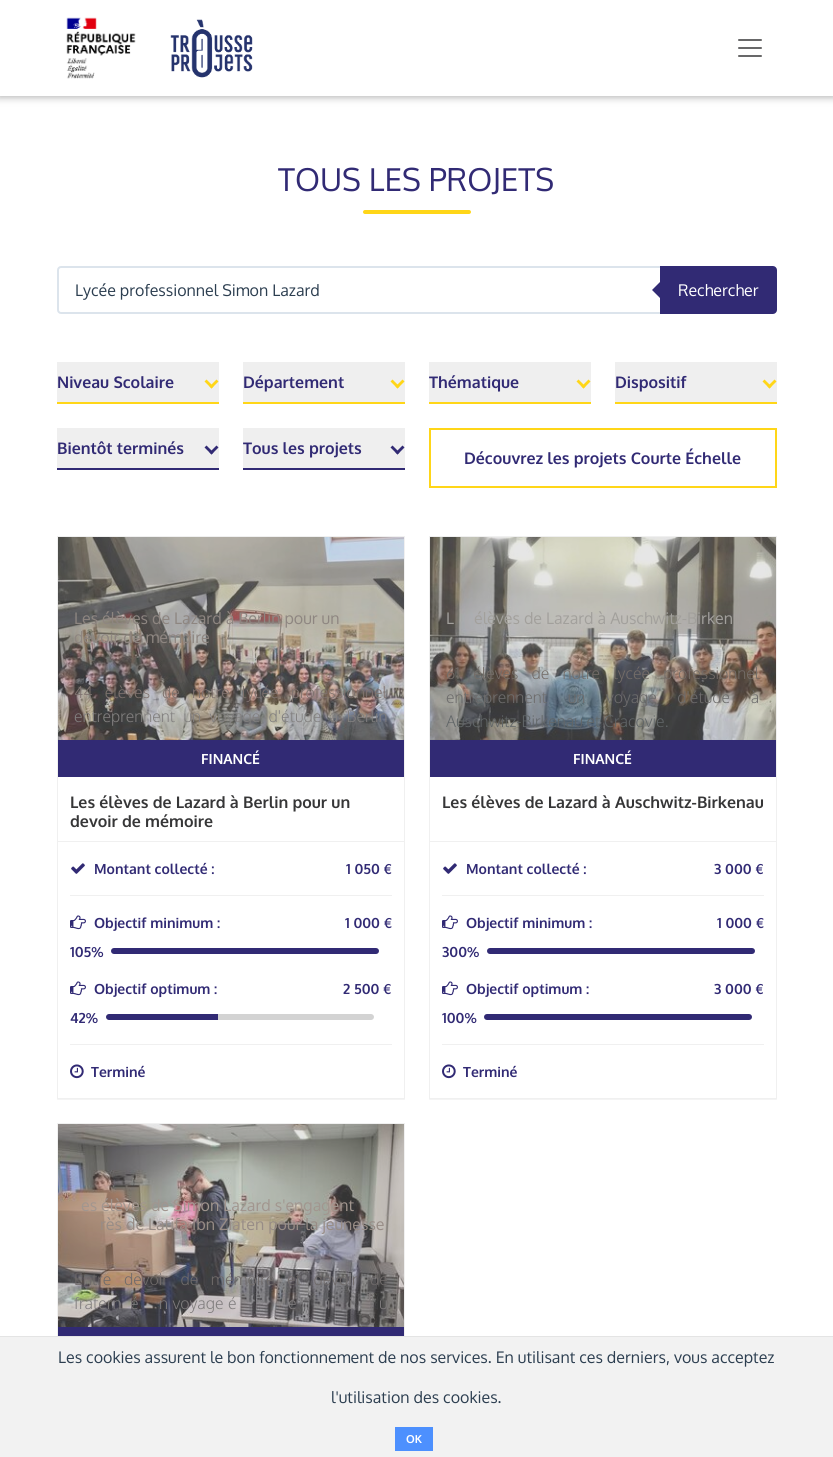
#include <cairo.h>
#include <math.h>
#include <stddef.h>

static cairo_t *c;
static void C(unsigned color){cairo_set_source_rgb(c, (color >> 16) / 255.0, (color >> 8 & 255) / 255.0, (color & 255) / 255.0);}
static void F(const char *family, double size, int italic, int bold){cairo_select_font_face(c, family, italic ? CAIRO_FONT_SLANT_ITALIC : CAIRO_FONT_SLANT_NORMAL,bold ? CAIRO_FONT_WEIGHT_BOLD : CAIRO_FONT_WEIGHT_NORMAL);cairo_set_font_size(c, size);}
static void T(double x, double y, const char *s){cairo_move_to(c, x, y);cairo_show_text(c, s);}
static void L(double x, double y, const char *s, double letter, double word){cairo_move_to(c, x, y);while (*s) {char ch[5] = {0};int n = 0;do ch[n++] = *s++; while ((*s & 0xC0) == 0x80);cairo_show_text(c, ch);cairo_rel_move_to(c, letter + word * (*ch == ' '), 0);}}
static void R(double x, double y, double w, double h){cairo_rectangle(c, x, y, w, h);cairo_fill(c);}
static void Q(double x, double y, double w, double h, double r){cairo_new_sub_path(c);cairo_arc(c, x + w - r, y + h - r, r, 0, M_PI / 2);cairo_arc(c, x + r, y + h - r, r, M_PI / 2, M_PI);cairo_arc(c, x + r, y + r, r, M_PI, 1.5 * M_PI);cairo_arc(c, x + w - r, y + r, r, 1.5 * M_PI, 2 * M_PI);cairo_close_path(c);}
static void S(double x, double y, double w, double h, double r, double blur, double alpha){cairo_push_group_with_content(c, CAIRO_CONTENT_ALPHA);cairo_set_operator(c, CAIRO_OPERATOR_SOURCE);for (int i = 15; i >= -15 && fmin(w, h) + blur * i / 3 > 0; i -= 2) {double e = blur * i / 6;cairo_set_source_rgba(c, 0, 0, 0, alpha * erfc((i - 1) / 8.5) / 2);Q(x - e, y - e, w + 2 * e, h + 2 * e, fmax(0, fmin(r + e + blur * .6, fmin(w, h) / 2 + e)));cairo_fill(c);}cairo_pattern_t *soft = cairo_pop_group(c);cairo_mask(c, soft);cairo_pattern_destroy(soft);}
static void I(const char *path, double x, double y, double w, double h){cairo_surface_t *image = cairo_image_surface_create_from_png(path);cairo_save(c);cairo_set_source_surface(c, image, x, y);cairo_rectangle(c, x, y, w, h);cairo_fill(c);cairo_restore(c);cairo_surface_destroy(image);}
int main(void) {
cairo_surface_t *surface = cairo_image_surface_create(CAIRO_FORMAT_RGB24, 833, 1457);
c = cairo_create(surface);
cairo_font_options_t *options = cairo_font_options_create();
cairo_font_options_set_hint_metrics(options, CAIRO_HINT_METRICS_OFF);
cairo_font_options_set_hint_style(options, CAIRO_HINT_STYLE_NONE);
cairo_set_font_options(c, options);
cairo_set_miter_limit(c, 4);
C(0xffffff);
cairo_paint(c);
C(0xadadad);
S(-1,-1,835,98,0,4,1);
C(0xffffff);
R(0,0,833,96);
I("1.png",66,17,70,62);
I("2.png",170,19,83,59);
I("3.png",738,39,24,18);
F("Oxygen",31.5,0,0);
C(0x312a74);
T(278,191,"TOUS LES PROJETS");
C(0xffd618);
Q(363,210,108,4,2);
cairo_fill(c);
Q(58,267,605,46,3);
C(0xdce4ec);
cairo_stroke(c);
F("Oxygen",16,0,0);
C(0x2c3e50);
T(75,296,"Lycée professionnel Simon Lazard");
C(0x312a74);
cairo_new_path(c);
cairo_move_to(c,661,267);
cairo_line_to(c,773,267);
cairo_curve_to(c,774.5,267,776,268.5,776,270);
cairo_line_to(c,776,310);
cairo_curve_to(c,776,311.5,774.5,313,773,313);
cairo_line_to(c,661,313);
cairo_close_path(c);
cairo_fill_preserve(c);
cairo_stroke(c);
cairo_new_path(c);
cairo_move_to(c,660,282);
cairo_line_to(c,660,298);
cairo_line_to(c,652,290);
cairo_close_path(c);
cairo_fill(c);
C(0xffffff);
T(678,296,"Rechercher");
C(0xefefef);
R(57,362,162,40);
C(0xffd618);
R(57,402,162,2);
F("Oxygen",16,0,1);
C(0x312a74);
T(57,388,"Niveau Scolaire");
C(0xffd618);
cairo_new_path(c);
cairo_move_to(c,216.5,379.5);
cairo_line_to(c,218.5,381.5);
cairo_line_to(c,211.5,388.5);
cairo_line_to(c,209.5,386.5);
cairo_close_path(c);
cairo_fill(c);
cairo_new_path(c);
cairo_move_to(c,206.5,379.5);
cairo_line_to(c,213.5,386.5);
cairo_line_to(c,211.5,388.5);
cairo_line_to(c,204.5,381.5);
cairo_close_path(c);
cairo_fill(c);
C(0xefefef);
R(243,362,162,40);
C(0xffd618);
R(243,402,162,2);
C(0x312a74);
T(243,388,"Département");
C(0xffd618);
cairo_new_path(c);
cairo_move_to(c,402.5,379.5);
cairo_line_to(c,404.5,381.5);
cairo_line_to(c,397.5,388.5);
cairo_line_to(c,395.5,386.5);
cairo_close_path(c);
cairo_fill(c);
cairo_new_path(c);
cairo_move_to(c,392.5,379.5);
cairo_line_to(c,399.5,386.5);
cairo_line_to(c,397.5,388.5);
cairo_line_to(c,390.5,381.5);
cairo_close_path(c);
cairo_fill(c);
C(0xefefef);
R(429,362,162,40);
C(0xffd618);
R(429,402,162,2);
cairo_save(c);
cairo_rectangle(c,429,370,138,24);
cairo_clip(c);
C(0x312a74);
T(429,388,"Thématique");
cairo_restore(c);
cairo_new_path(c);
cairo_move_to(c,588.5,379.5);
cairo_line_to(c,590.5,381.5);
cairo_line_to(c,583.5,388.5);
cairo_line_to(c,581.5,386.5);
cairo_close_path(c);
cairo_fill(c);
cairo_new_path(c);
cairo_move_to(c,578.5,379.5);
cairo_line_to(c,585.5,386.5);
cairo_line_to(c,583.5,388.5);
cairo_line_to(c,576.5,381.5);
cairo_close_path(c);
cairo_fill(c);
C(0xefefef);
R(615,362,162,40);
C(0xffd618);
R(615,402,162,2);
C(0x312a74);
T(615,388,"Dispositif");
C(0xffd618);
cairo_new_path(c);
cairo_move_to(c,774.5,379.5);
cairo_line_to(c,776.5,381.5);
cairo_line_to(c,769.5,388.5);
cairo_line_to(c,767.5,386.5);
cairo_close_path(c);
cairo_fill(c);
cairo_new_path(c);
cairo_move_to(c,764.5,379.5);
cairo_line_to(c,771.5,386.5);
cairo_line_to(c,769.5,388.5);
cairo_line_to(c,762.5,381.5);
cairo_close_path(c);
cairo_fill(c);
C(0xefefef);
R(57,428,162,40);
C(0x312a74);
R(57,468,162,2);
T(57,454,"Bientôt terminés");
cairo_new_path(c);
cairo_move_to(c,216.5,445.5);
cairo_line_to(c,218.5,447.5);
cairo_line_to(c,211.5,454.5);
cairo_line_to(c,209.5,452.5);
cairo_close_path(c);
cairo_fill(c);
cairo_new_path(c);
cairo_move_to(c,206.5,445.5);
cairo_line_to(c,213.5,452.5);
cairo_line_to(c,211.5,454.5);
cairo_line_to(c,204.5,447.5);
cairo_close_path(c);
cairo_fill(c);
C(0xefefef);
R(243,428,162,40);
C(0x312a74);
R(243,468,162,2);
cairo_save(c);
cairo_rectangle(c,243,436,138,24);
cairo_clip(c);
T(243,454,"Tous les projets");
cairo_restore(c);
cairo_new_path(c);
cairo_move_to(c,402.5,445.5);
cairo_line_to(c,404.5,447.5);
cairo_line_to(c,397.5,454.5);
cairo_line_to(c,395.5,452.5);
cairo_close_path(c);
cairo_fill(c);
cairo_new_path(c);
cairo_move_to(c,392.5,445.5);
cairo_line_to(c,399.5,452.5);
cairo_line_to(c,397.5,454.5);
cairo_line_to(c,390.5,447.5);
cairo_close_path(c);
cairo_fill(c);
cairo_rectangle(c,430,429,346,58);
C(0xffd618);
cairo_stroke(c);
C(0x312a74);
T(464,464,"Découvrez les projets Courte Échelle");
cairo_save(c);
cairo_rectangle(c,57,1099,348,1);
cairo_clip(c);
C(0x000000);
S(57,537,348,563,0,.5,.05);
cairo_restore(c);
cairo_rectangle(c,57.5,536.5,347,562);
C(0xf0f0f0);
cairo_set_line_width(c,1);
cairo_stroke(c);
I("4.png",58,537,346,203);
F("Oxygen",16,0,0);
C(0x8e8681);
T(74,624,"Les élèves de Lazard à Berlin pour un");
T(74,643,"devoir de mémoire");
F("Oxygen Light",16,0,0);
C(0x7f736f);
L(74,698,"44 élèves de notre lycée professionnel",0,8.5);
C(0x82807f);
L(74,722,"entreprennent un voyage d'étude à Berlin",0,4.75);
C(0x312a74);
R(58,740,346,37);
F("Oxygen",14,0,1);
C(0xffffff);
T(201,764,"FINANCÉ");
F("Oxygen",16,0,1);
C(0x363637);
T(70,808,"Les élèves de Lazard à Berlin pour un");
T(70,827,"devoir de mémoire");
C(0xf0f0f0);
R(58,841,346,1);
I("5.png",71,863,14,11);
F("Oxygen",14,0,1);
C(0x312a74);
T(94,874,"Montant collecté :");
T(346,874,"1 050 €");
C(0xf0f0f0);
R(70,895,322,1);
I("6.png",70,915,16,15);
C(0x312a74);
T(94,928,"Objectif minimum :");
T(345,928,"1 000 €");
T(70,957,"105%");
Q(111,948,268,6,3);
cairo_fill(c);
I("6.png",70,981,16,15);
T(94,994,"Objectif optimum :");
T(343,994,"2 500 €");
T(70,1023,"42%");
C(0xd3d3d3);
Q(106,1014,268,6,3);
cairo_fill(c);
C(0x312a74);
cairo_new_path(c);
cairo_move_to(c,109,1014);
cairo_line_to(c,218,1014);
cairo_line_to(c,218,1020);
cairo_line_to(c,109,1020);
cairo_curve_to(c,107.5,1020,106,1018.5,106,1017);
cairo_curve_to(c,106,1015.5,107.5,1014,109,1014);
cairo_close_path(c);
cairo_fill(c);
C(0xf0f0f0);
R(70,1044,322,1);
I("7.png",70,1064,14,15);
C(0x312a74);
T(91,1077,"Terminé");
cairo_save(c);
cairo_rectangle(c,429,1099,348,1);
cairo_clip(c);
C(0x000000);
S(429,537,348,563,0,.5,.05);
cairo_restore(c);
cairo_rectangle(c,429.5,536.5,347,562);
C(0xf0f0f0);
cairo_stroke(c);
I("8.png",430,537,346,203);
F("Oxygen",16,0,0);
C(0xa2a09c);
T(446,624,"L");
T(474,624,"élèves de Lazard à Auschwitz-Birken");
F("Oxygen Light",16,0,0);
C(0x746d68);
L(446,679,"61 élèves de notre lycée professionnel",0,9.5);
C(0x6e6d6d);
L(446,703,"entreprennent un voyage d'étude à",0,17);
C(0x616668);
T(446,727,"Auschwitz-Birkenau et Cracovie.");
C(0x312a74);
R(430,740,346,37);
F("Oxygen",14,0,1);
C(0xffffff);
T(573,764,"FINANCÉ");
F("Oxygen",16,0,1);
C(0x363637);
T(442,808,"Les élèves de Lazard à Auschwitz-Birkenau");
C(0xf0f0f0);
R(430,841,346,1);
I("5.png",443,863,14,11);
F("Oxygen",14,0,1);
C(0x312a74);
T(466,874,"Montant collecté :");
T(714,874,"3 000 €");
C(0xf0f0f0);
R(442,895,322,1);
I("6.png",442,915,16,15);
C(0x312a74);
T(466,928,"Objectif minimum :");
T(717,928,"1 000 €");
T(442,957,"300%");
Q(487,948,268,6,3);
cairo_fill(c);
I("6.png",442,981,16,15);
T(466,994,"Objectif optimum :");
T(714,994,"3 000 €");
T(442,1023,"100%");
Q(484,1014,268,6,3);
cairo_fill(c);
C(0xf0f0f0);
R(442,1044,322,1);
I("7.png",442,1064,14,15);
C(0x312a74);
T(463,1077,"Terminé");
cairo_rectangle(c,57.5,1123.5,347,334);
C(0xf0f0f0);
cairo_stroke(c);
I("9.png",58,1124,346,203);
F("Oxygen",16,0,0);
C(0x9b8b81);
T(81,1211,"es élèves de Simon Lazard s'engagent");
C(0x8e7e75);
T(100,1230,"rès de Latifa Ibn Ziaten pour la jeunesse");
F("Oxygen Light",16,0,0);
C(0x554e4d);
L(74,1285,"Entre devoir de mémoire et devoir de",0,9);
C(0x6b6768);
L(74,1309,"fratern",0,1);
L(130,1309,"é",0,1);
L(159,1309,"n voyage é",0,1);
L(288,1309,"e",0,1);
L(327,1309,"i",0,1);
L(349,1309,"i",0,1);
L(379,1309,"u",0,1);
cairo_set_source_rgba(c,0.678,0.678,0.678,0.3);
R(58,1124,346,203);
C(0x312a74);
R(58,1327,346,9);
C(0xf2f2f2);
R(0,1337,833,120);
C(0xe4e4e4);
R(0,1336,833,1);
F("Oxygen",16,0,0);
C(0x2c3e50);
T(58,1363,"Les cookies assurent le bon fonctionnement de nos services. En utilisant ces derniers, vous acceptez");
T(331,1403,"l'utilisation des cookies.");
C(0x4d90fe);
R(395,1427,38,24);
F("Oxygen",11,0,1);
C(0xffffff);
T(406,1443,"OK");
cairo_surface_write_to_png(surface, "o.png");
cairo_font_options_destroy(options);
cairo_destroy(c);
cairo_surface_destroy(surface);
return 0;
}
